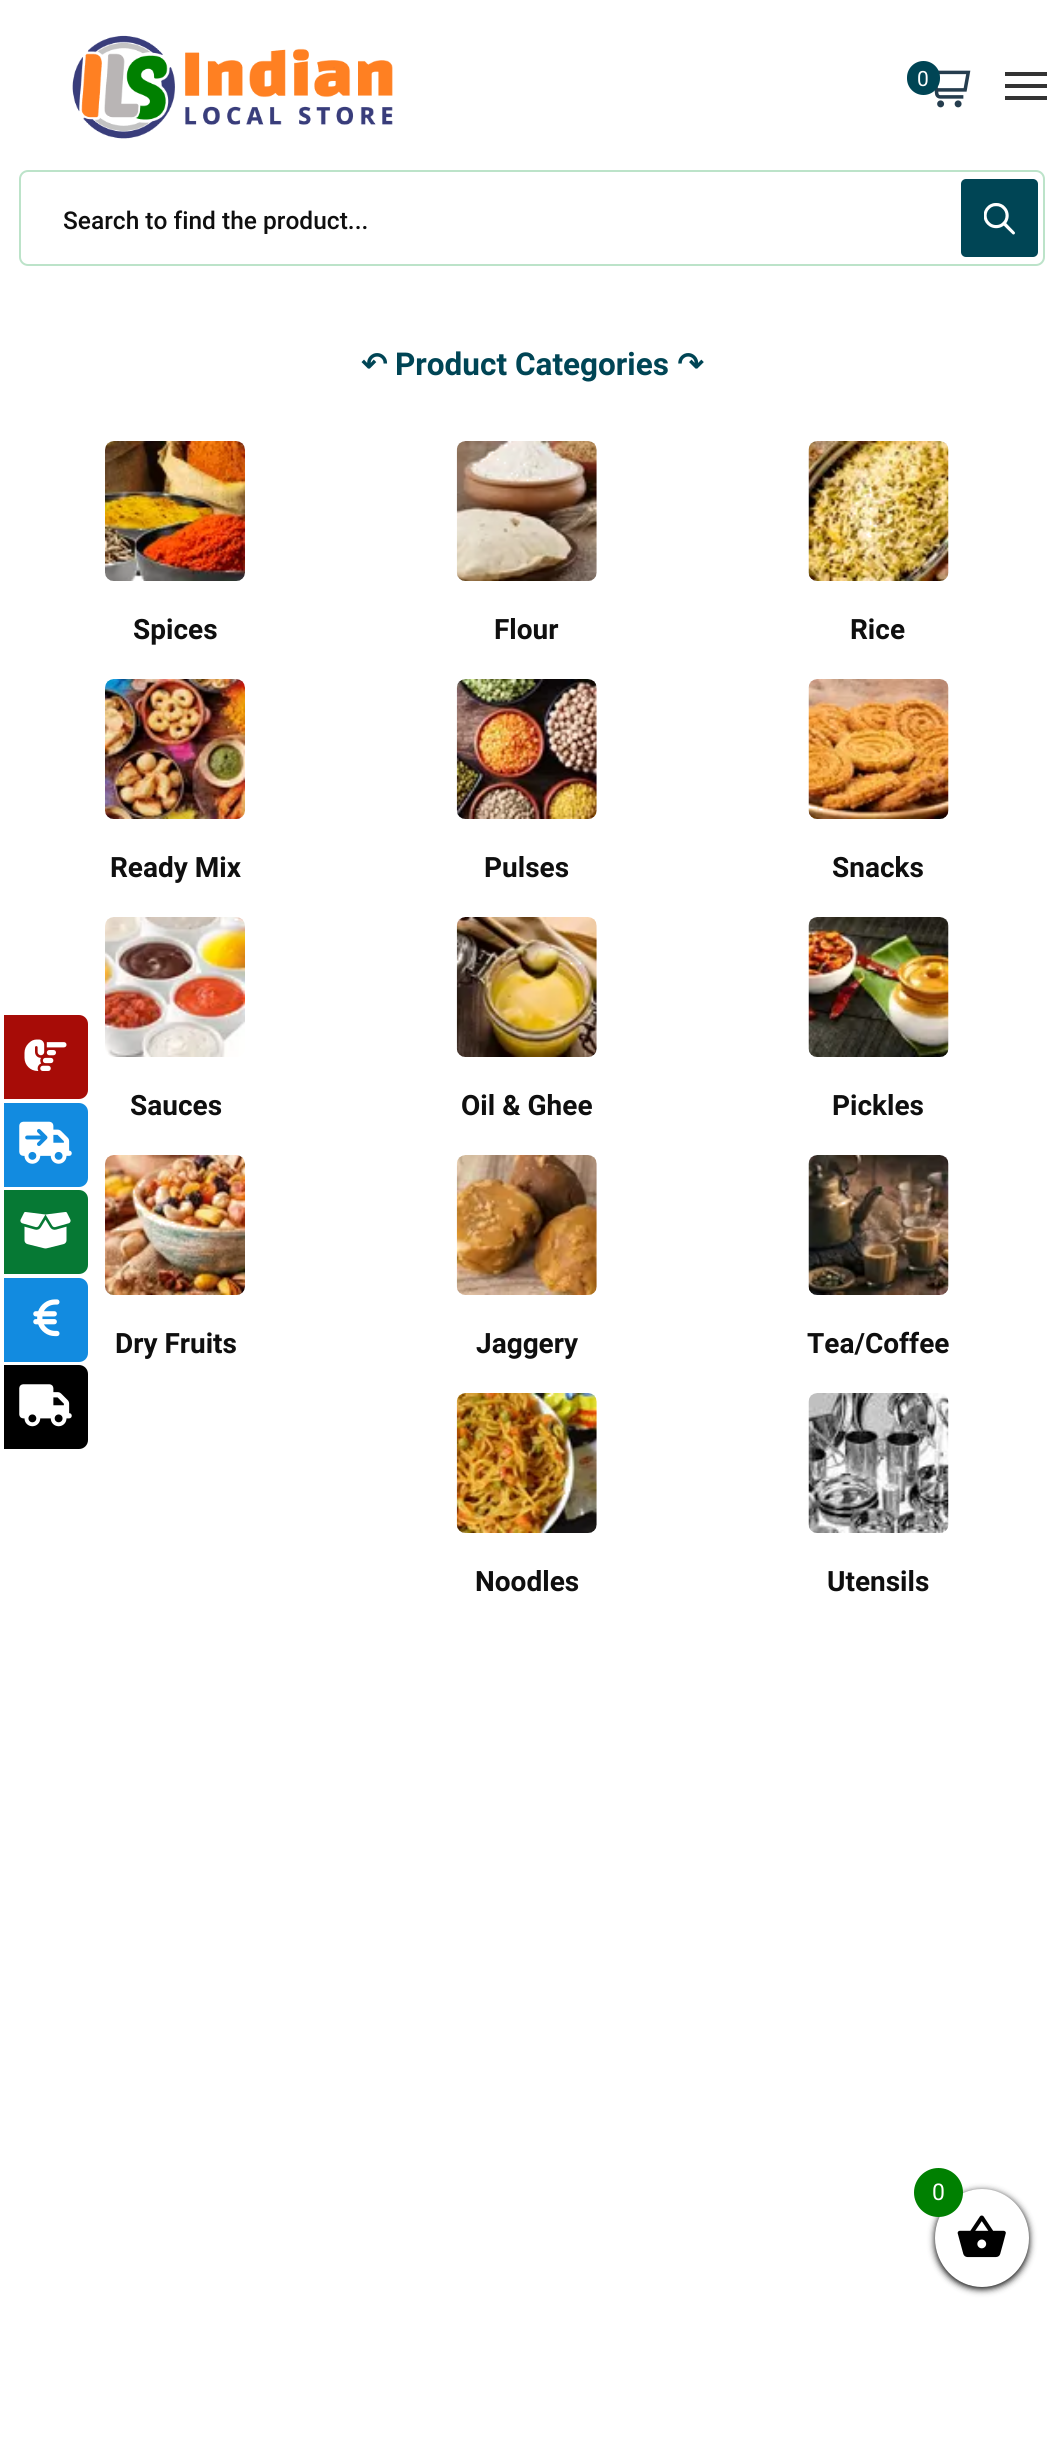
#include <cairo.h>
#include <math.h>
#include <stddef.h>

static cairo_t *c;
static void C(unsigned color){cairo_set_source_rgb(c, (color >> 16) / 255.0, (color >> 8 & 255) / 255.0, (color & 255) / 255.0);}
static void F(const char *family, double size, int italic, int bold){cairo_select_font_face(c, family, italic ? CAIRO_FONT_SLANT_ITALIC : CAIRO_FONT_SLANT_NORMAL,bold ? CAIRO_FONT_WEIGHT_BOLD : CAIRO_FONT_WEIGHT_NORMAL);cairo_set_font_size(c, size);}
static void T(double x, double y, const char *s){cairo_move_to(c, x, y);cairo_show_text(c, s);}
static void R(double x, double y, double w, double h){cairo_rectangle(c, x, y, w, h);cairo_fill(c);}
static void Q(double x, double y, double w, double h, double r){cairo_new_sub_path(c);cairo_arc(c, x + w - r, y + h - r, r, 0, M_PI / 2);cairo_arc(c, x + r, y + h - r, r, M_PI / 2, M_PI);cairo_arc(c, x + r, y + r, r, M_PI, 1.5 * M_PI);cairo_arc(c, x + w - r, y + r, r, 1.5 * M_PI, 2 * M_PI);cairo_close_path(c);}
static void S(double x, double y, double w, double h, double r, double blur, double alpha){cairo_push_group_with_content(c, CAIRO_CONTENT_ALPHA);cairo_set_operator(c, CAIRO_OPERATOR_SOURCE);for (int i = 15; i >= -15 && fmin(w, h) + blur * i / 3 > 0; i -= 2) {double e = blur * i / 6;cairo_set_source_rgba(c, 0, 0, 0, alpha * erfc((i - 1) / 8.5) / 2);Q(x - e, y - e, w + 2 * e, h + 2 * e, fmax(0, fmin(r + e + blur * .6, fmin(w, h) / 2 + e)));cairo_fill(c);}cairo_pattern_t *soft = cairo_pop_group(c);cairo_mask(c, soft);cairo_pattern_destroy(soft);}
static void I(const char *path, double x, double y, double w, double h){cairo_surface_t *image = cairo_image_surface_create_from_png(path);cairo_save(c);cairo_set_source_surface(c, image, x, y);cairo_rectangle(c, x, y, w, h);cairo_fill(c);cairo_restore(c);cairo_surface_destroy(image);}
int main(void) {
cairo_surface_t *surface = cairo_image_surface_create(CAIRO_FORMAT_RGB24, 1063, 2461);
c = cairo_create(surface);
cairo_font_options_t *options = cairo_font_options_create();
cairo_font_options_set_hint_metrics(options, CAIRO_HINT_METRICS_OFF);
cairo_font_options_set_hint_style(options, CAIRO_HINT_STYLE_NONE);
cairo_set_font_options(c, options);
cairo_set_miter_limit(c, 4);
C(0xffffff);
cairo_paint(c);
C(0xa70c07);
cairo_new_path(c);
cairo_move_to(c,4,1015);
cairo_line_to(c,79,1015);
cairo_curve_to(c,84,1015,88,1019,88,1024);
cairo_line_to(c,88,1090);
cairo_curve_to(c,88,1095,84,1099,79,1099);
cairo_line_to(c,4,1099);
cairo_close_path(c);
cairo_fill(c);
I("1.png",24,1039,43,32);
C(0x128be0);
cairo_new_path(c);
cairo_move_to(c,4,1103);
cairo_line_to(c,79,1103);
cairo_curve_to(c,84,1103,88,1107,88,1112);
cairo_line_to(c,88,1178);
cairo_curve_to(c,88,1183,84,1187,79,1187);
cairo_line_to(c,4,1187);
cairo_close_path(c);
cairo_fill(c);
I("2.png",19,1121,53,43);
C(0x067934);
cairo_new_path(c);
cairo_move_to(c,4,1190);
cairo_line_to(c,79,1190);
cairo_curve_to(c,84,1190,88,1194,88,1199);
cairo_line_to(c,88,1265);
cairo_curve_to(c,88,1270,84,1274,79,1274);
cairo_line_to(c,4,1274);
cairo_close_path(c);
cairo_fill(c);
I("3.png",20,1212,51,37);
C(0x128be0);
cairo_new_path(c);
cairo_move_to(c,4,1278);
cairo_line_to(c,79,1278);
cairo_curve_to(c,84,1278,88,1282,88,1287);
cairo_line_to(c,88,1353);
cairo_curve_to(c,88,1358,84,1362,79,1362);
cairo_line_to(c,4,1362);
cairo_close_path(c);
cairo_fill(c);
I("4.png",33,1299,27,38);
C(0x000000);
cairo_new_path(c);
cairo_move_to(c,4,1365);
cairo_line_to(c,79,1365);
cairo_curve_to(c,84,1365,88,1369,88,1374);
cairo_line_to(c,88,1440);
cairo_curve_to(c,88,1445,84,1449,79,1449);
cairo_line_to(c,4,1449);
cairo_close_path(c);
cairo_fill(c);
I("5.png",19,1384,53,43);
I("6.png",72,35,321,104);
I("7.png",934,70,37,38);
C(0x004555);
Q(907,61,33,34,16.5);
cairo_fill(c);
F("Roboto",21,0,0);
C(0xffffff);
T(917,86,"0");
C(0x333333);
R(1005,72,42,4);
R(1005,84,42,4);
R(1005,96,42,4);
Q(20,171,1024,94,8);
C(0xbce3c9);
cairo_stroke(c);
F("Roboto Medium",24.5,0,0);
C(0x0f0f0f);
T(63,229,"Search to find the product...");
C(0x004555);
Q(961,179,77,78,5);
cairo_fill(c);
I("8.png",984,203,31,32);
F("DejaVu Sans",31.5,0,1);
T(361,375,"↶");
F("Roboto",31.5,0,1);
T(395,375,"Product Categories");
F("DejaVu Sans",31.5,0,1);
T(677,375,"↷");
I("9.png",105,441,140,140);
F("Roboto",28,0,1);
C(0x0f0f0f);
T(133,639,"Spices");
I("10.png",456,441,141,140);
T(494,639,"Flour");
I("11.png",808,441,141,140);
T(850,639,"Rice");
I("12.png",105,679,140,140);
T(110,877,"Ready Mix");
I("13.png",456,679,141,140);
T(484,877,"Pulses");
I("14.png",808,679,141,140);
T(832,877,"Snacks");
I("15.png",105,917,140,140);
T(130,1115,"Sauces");
I("16.png",456,917,141,140);
T(461,1115,"Oil & Ghee");
I("17.png",808,917,141,140);
T(832,1115,"Pickles");
I("18.png",105,1155,140,140);
T(115,1353,"Dry Fruits");
I("19.png",456,1155,141,140);
T(476,1353,"Jaggery");
I("20.png",808,1155,141,140);
T(807,1353,"Tea/Coffee");
I("21.png",456,1393,141,140);
T(475,1591,"Noodles");
I("22.png",808,1393,141,140);
T(827,1591,"Utensils");
C(0x000000);
S(935,2191,94,98,47,3.5,1);
C(0xffffff);
cairo_new_path(c);
cairo_move_to(c,982,2189);
cairo_curve_to(c,1008,2189,1029,2211,1029,2238);
cairo_curve_to(c,1029,2265,1008,2287,982,2287);
cairo_curve_to(c,956,2287,935,2265,935,2238);
cairo_curve_to(c,935,2211,956,2189,982,2189);
cairo_close_path(c);
cairo_fill(c);
C(0x008001);
cairo_arc(c,938.5,2192.5,24.5,0,2 * M_PI);
cairo_fill(c);
F("Roboto",23,0,0);
C(0xffffff);
T(932,2200,"0");
I("23.png",957,2215,49,43);
cairo_surface_write_to_png(surface, "o.png");
cairo_font_options_destroy(options);
cairo_destroy(c);
cairo_surface_destroy(surface);
return 0;
}
